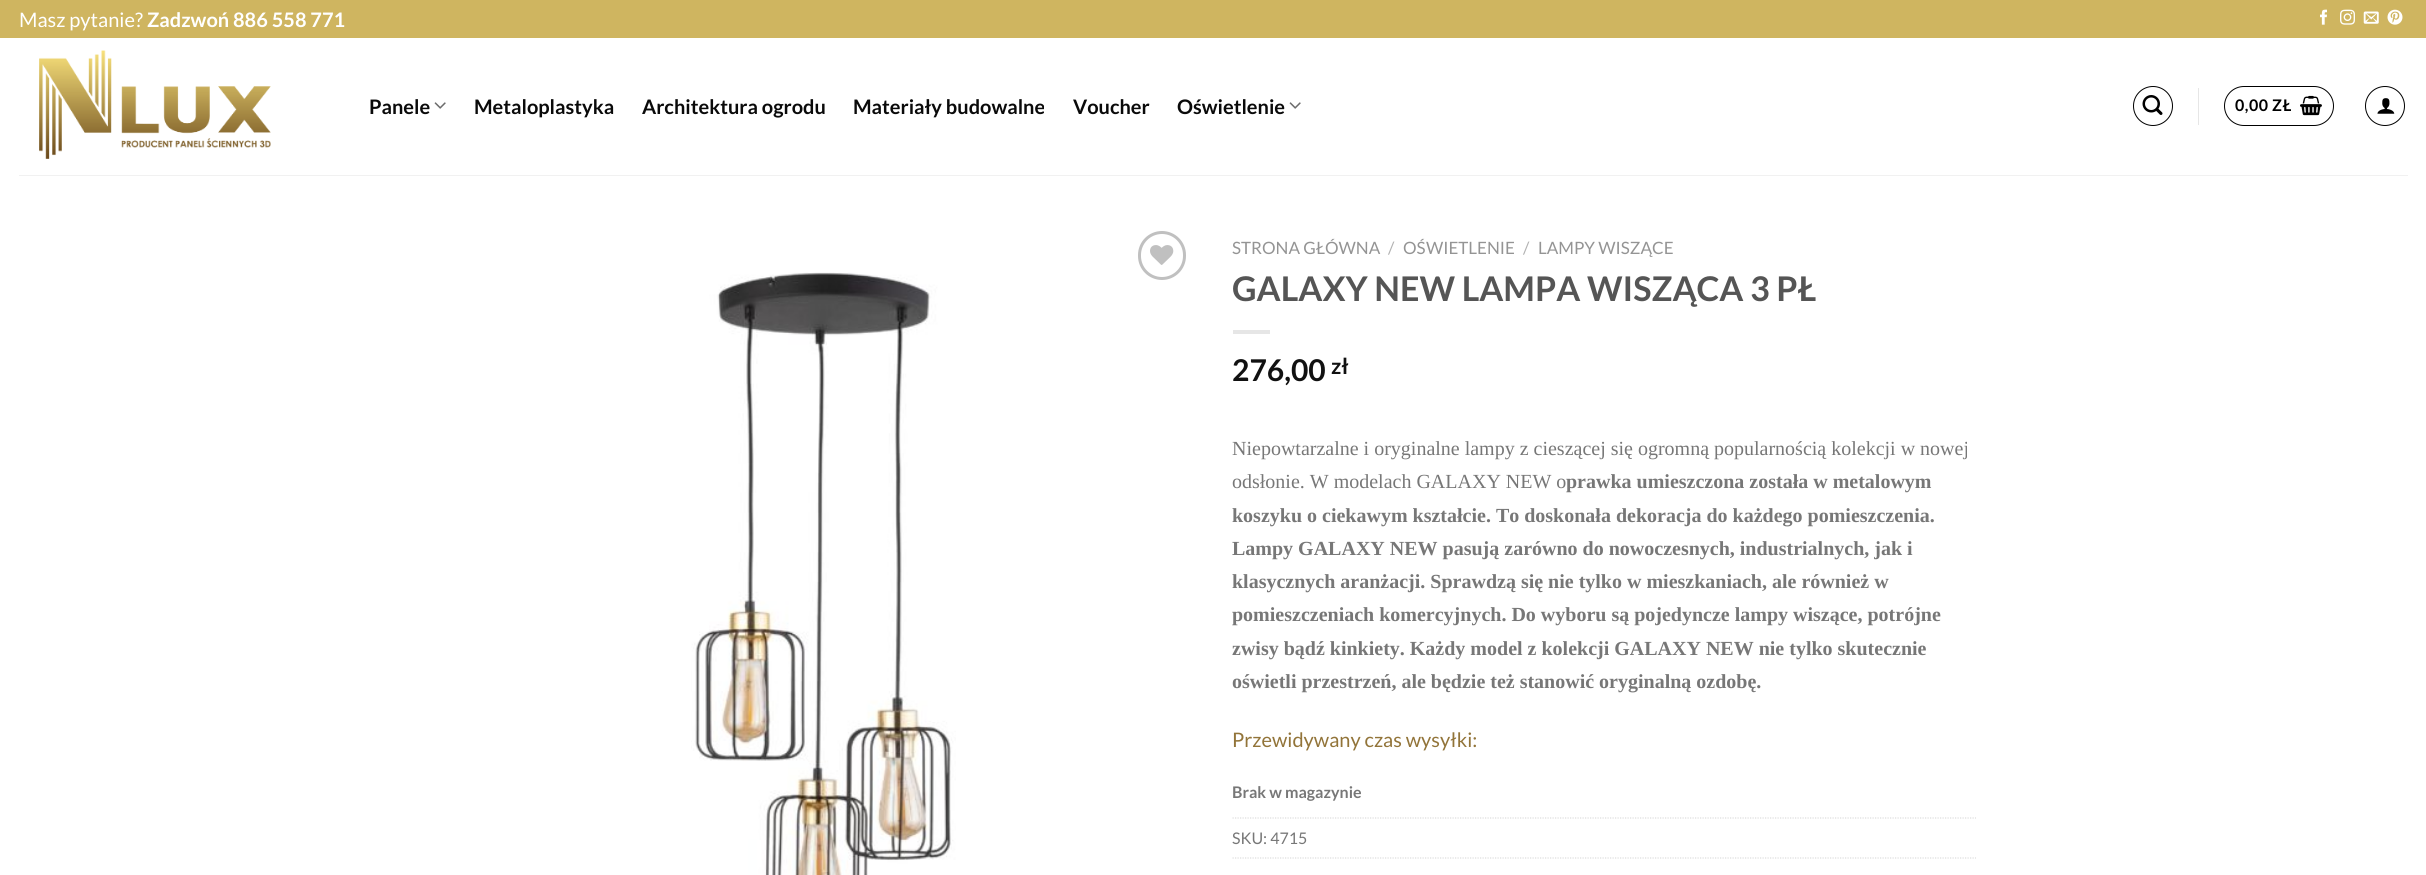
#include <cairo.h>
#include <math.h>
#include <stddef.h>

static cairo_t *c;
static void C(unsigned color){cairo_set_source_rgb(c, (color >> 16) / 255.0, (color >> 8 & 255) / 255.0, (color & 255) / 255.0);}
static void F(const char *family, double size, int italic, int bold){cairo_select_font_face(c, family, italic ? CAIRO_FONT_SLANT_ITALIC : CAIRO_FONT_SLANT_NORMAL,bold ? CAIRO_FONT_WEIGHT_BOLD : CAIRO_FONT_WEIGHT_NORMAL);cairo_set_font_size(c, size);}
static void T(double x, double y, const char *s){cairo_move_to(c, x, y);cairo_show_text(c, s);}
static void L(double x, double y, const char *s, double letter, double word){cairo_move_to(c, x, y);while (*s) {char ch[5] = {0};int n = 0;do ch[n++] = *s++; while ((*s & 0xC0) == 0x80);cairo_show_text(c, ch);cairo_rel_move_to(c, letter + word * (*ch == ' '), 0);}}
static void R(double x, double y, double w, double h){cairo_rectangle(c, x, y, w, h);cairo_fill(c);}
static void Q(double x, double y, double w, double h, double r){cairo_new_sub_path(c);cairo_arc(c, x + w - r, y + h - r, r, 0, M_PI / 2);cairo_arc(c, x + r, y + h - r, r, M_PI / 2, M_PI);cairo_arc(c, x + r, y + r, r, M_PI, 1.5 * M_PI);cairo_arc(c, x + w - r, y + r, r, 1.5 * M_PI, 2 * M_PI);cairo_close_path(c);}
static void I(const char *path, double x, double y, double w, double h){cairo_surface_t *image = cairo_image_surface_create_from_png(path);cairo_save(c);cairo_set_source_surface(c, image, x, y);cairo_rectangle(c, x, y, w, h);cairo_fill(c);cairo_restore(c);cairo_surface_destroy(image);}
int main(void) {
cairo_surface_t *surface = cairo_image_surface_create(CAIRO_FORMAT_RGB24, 2426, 875);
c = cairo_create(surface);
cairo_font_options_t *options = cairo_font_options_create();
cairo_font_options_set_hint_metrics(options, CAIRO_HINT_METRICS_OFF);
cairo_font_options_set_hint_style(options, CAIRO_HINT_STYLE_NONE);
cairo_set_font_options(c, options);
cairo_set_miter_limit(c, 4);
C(0xffffff);
cairo_paint(c);
C(0xcfb560);
R(0,0,2426,38);
F("Lato",20,0,0);
C(0xffffff);
T(19,27,"Masz pytanie?");
F("Lato",20,0,1);
T(147,27,"Zadzwoń 886 558 771");
I("1.png",2320,9,7,16);
I("2.png",2340,9,15,16);
I("3.png",2363,11,16,13);
I("4.png",2387,9,16,16);
I("5.png",39,50,232,109);
C(0x0a0a0a);
T(369,114,"Panele");
I("6.png",434,102,12,7);
T(474,114,"Metaloplastyka");
T(642,114,"Architektura ogrodu");
T(853,114,"Materiały budowalne");
T(1073,114,"Voucher");
T(1177,114,"Oświetlenie");
I("6.png",1289,102,12,7);
cairo_arc(c,2153,106,19.5,0,2 * M_PI);
C(0x000000);
cairo_set_line_width(c,1);
cairo_stroke(c);
I("7.png",2142,95,21,20);
C(0xe6e6e6);
R(2198,88,1,37);
Q(2224.5,86.5,109,39,19.5);
C(0x000000);
cairo_stroke(c);
F("Lato",16,0,1);
L(2235,111,"0,00 ZŁ",.5,0);
I("8.png",2300,95,22,21);
cairo_arc(c,2385,106,19.5,0,2 * M_PI);
cairo_stroke(c);
I("9.png",2377,98,18,16);
C(0xf1f1f1);
R(19,175,2389,1);
Q(1139.5,232.5,45,46,22.5);
C(0xc0c0c0);
cairo_set_line_width(c,3);
cairo_stroke(c);
I("10.png",1150,245,24,20);
I("11.png",691,272,265,603);
F("Lato",17,0,0);
C(0x949494);
T(1232,254,"STRONA GŁÓWNA");
C(0xb2b2b2);
T(1388,254,"/");
C(0x949494);
T(1403,254,"OŚWIETLENIE");
C(0xb2b2b2);
T(1523,254,"/");
C(0x949494);
T(1538,254,"LAMPY WISZĄCE");
F("Lato",34,0,1);
C(0x555555);
T(1232,301,"GALAXY NEW LAMPA WISZĄCA 3 PŁ");
C(0xe6e6e6);
R(1233,330,37,4);
F("Lato",30,0,1);
C(0x111111);
T(1232,381,"276,00");
F("Lato",22,0,1);
T(1331,374,"zł");
F("Liberation Serif",20,0,0);
C(0x777777);
T(1232,455,"Niepowtarzalne i oryginalne lampy z cieszącej się ogromną popularnością kolekcji w nowej");
T(1232,488,"odsłonie. W modelach GALAXY NEW o");
F("Liberation Serif",20,0,1);
T(1566,488,"prawka umieszczona została w metalowym");
T(1232,522,"koszyku o ciekawym kształcie. To doskonała dekoracja do każdego pomieszczenia.");
T(1232,555,"Lampy GALAXY NEW pasują zarówno do nowoczesnych, industrialnych, jak i");
T(1232,588,"klasycznych aranżacji. Sprawdzą się nie tylko w mieszkaniach, ale również w");
T(1232,621,"pomieszczeniach komercyjnych. Do wyboru są pojedyncze lampy wiszące, potrójne");
T(1232,655,"zwisy bądź kinkiety. Każdy model z kolekcji GALAXY NEW nie tylko skutecznie");
T(1232,688,"oświetli przestrzeń, ale będzie też stanowić oryginalną ozdobę.");
F("Lato",20,0,0);
C(0x927439);
T(1232,747,"Przewidywany czas wysyłki:");
F("Lato",16,0,1);
C(0x777777);
T(1232,798,"Brak w magazynie");
cairo_new_path(c);
cairo_move_to(c,1232.5,818);
cairo_line_to(c,1976,818);
C(0xdddddd);
cairo_set_line_width(c,1.2);
cairo_set_dash(c,(double[]){1.25,1.25},2,0);
cairo_stroke(c);
F("Lato",16,0,0);
C(0x777777);
T(1232,844,"SKU: 4715");
cairo_new_path(c);
cairo_move_to(c,1232.5,858);
cairo_line_to(c,1976,858);
C(0xdddddd);
cairo_stroke(c);
cairo_surface_write_to_png(surface, "o.png");
cairo_font_options_destroy(options);
cairo_destroy(c);
cairo_surface_destroy(surface);
return 0;
}
